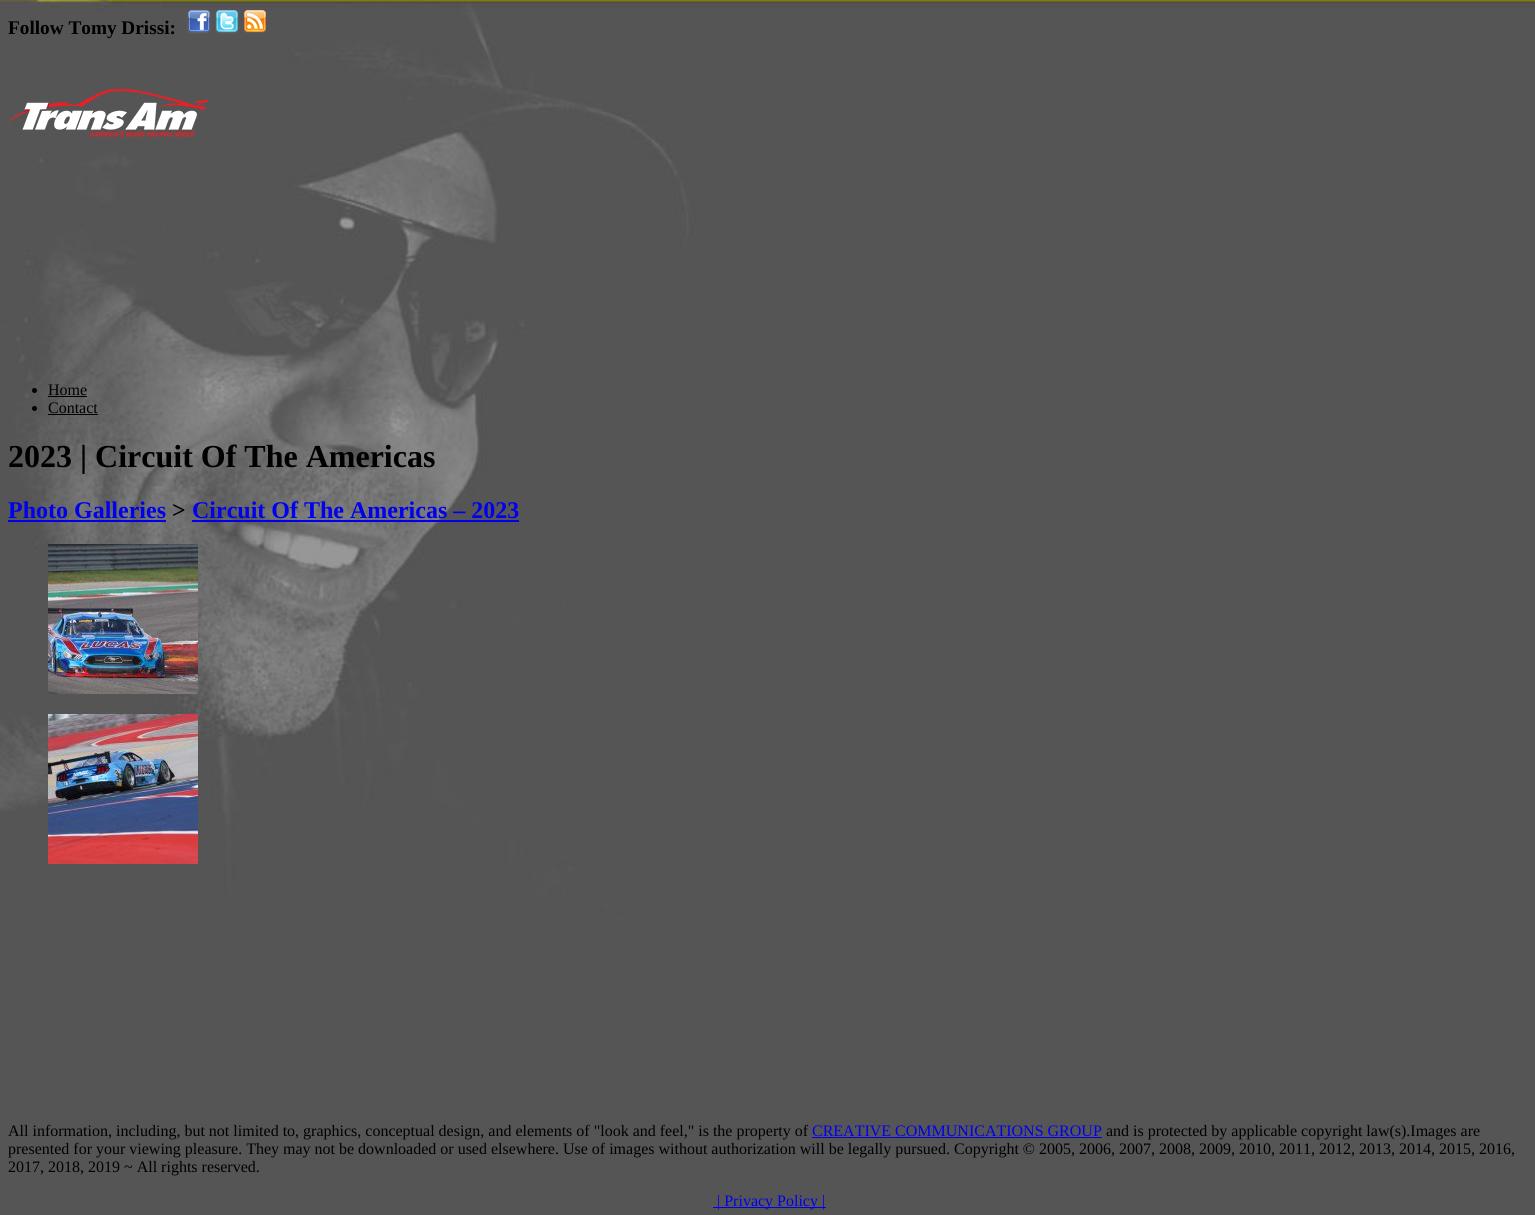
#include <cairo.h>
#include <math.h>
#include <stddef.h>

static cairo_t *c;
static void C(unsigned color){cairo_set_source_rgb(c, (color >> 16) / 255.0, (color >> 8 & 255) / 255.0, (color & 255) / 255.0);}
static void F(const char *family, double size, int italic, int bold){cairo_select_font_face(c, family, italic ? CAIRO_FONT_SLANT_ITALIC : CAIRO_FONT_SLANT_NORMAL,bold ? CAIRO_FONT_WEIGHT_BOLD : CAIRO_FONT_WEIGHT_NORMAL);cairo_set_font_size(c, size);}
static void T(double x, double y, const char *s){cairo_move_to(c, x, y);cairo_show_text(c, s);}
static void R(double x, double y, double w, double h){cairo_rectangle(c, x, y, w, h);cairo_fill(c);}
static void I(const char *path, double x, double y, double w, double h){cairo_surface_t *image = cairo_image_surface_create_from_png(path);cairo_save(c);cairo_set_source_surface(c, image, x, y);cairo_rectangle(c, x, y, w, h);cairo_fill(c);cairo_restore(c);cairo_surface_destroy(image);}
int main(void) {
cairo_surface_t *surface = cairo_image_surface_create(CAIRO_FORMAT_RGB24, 1535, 1215);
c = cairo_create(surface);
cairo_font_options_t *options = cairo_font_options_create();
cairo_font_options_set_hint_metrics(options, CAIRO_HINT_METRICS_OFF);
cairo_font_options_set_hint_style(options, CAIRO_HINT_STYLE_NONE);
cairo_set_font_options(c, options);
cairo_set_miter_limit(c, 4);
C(0xffffff);
cairo_paint(c);
I("1.png",0,0,1535,1215);
F("Liberation Serif",19.25,0,1);
C(0x000000);
T(8,34,"Follow Tomy Drissi:");
I("2.png",187,10,24,24);
I("3.png",215,10,24,24);
I("4.png",244,10,22,23);
I("5.png",8,89,200,48);
cairo_arc(c,34.5,390.5,2.5,0,2 * M_PI);
cairo_fill(c);
F("Liberation Serif",16,0,0);
T(48,395,"Home");
R(48,396,39,1);
cairo_new_path(c);
cairo_arc(c,34.5,408.5,2.5,0,2 * M_PI);
cairo_fill(c);
T(48,413,"Contact");
R(48,414,50,1);
F("Liberation Serif",32,0,1);
T(8,467,"2023 | Circuit Of The Americas");
F("Liberation Serif",24,0,1);
C(0x0000ee);
T(8,518,"Photo Galleries");
R(8,520,158,2);
C(0x000000);
T(172,518,">");
C(0x0000ee);
T(192,518,"Circuit Of The Americas – 2023");
R(192,520,327,2);
I("6.png",48,544,150,150);
I("7.png",48,714,150,150);
F("Liberation Serif",16,0,0);
C(0x000000);
T(8,1136,"All information, including, but not limited to, graphics, conceptual design, and elements of \"look and feel,\" is the property of");
C(0x0000ee);
T(812,1136,"CREATIVE COMMUNICATIONS GROUP");
R(812,1137,290,1);
C(0x000000);
T(1106,1136,"and is protected by applicable copyright law(s).Images are");
T(8,1154,"presented for your viewing pleasure. They may not be downloaded or used elsewhere. Use of images without authorization will be legally pursued. Copyright © 2005, 2006, 2007, 2008, 2009, 2010, 2011, 2012, 2013, 2014, 2015, 2016,");
T(8,1172,"2017, 2018, 2019 ~ All rights reserved.");
C(0x0000ee);
R(713,1207,113,1);
T(717,1206,"| Privacy Policy |");
cairo_surface_write_to_png(surface, "o.png");
cairo_font_options_destroy(options);
cairo_destroy(c);
cairo_surface_destroy(surface);
return 0;
}
